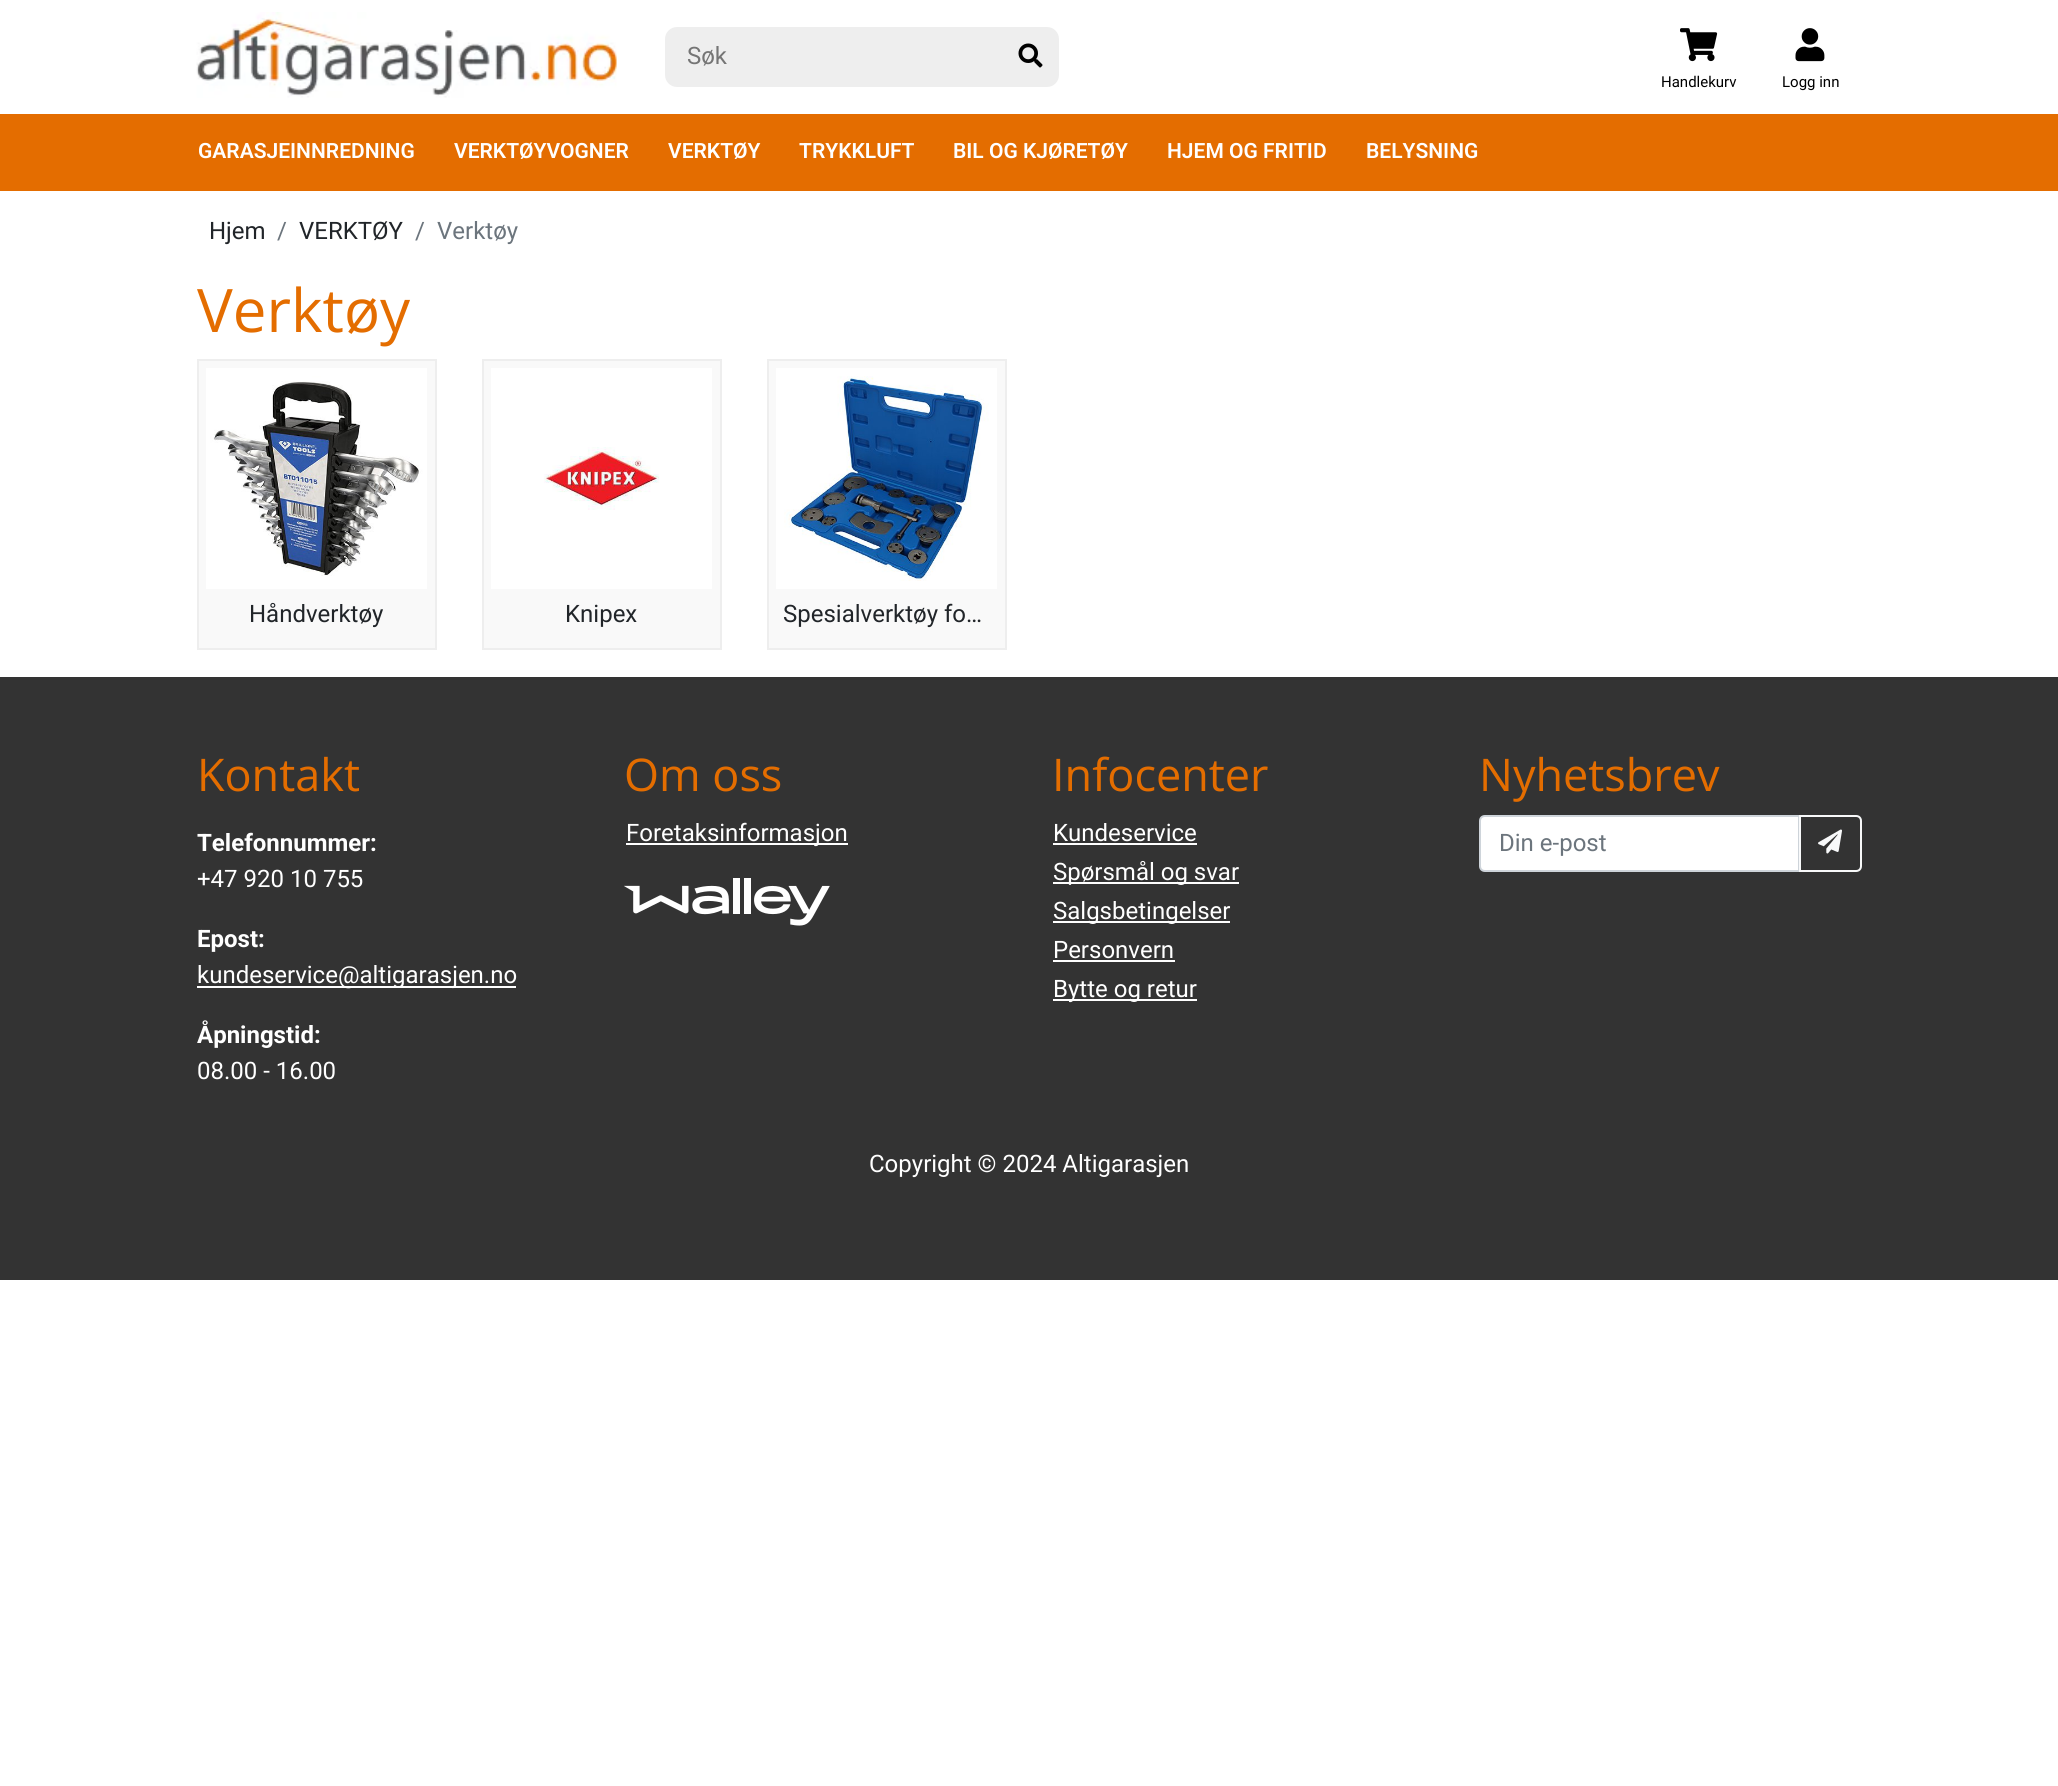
#include <cairo.h>
#include <math.h>
#include <stddef.h>

static cairo_t *c;
static void C(unsigned color){cairo_set_source_rgb(c, (color >> 16) / 255.0, (color >> 8 & 255) / 255.0, (color & 255) / 255.0);}
static void F(const char *family, double size, int italic, int bold){cairo_select_font_face(c, family, italic ? CAIRO_FONT_SLANT_ITALIC : CAIRO_FONT_SLANT_NORMAL,bold ? CAIRO_FONT_WEIGHT_BOLD : CAIRO_FONT_WEIGHT_NORMAL);cairo_set_font_size(c, size);}
static void T(double x, double y, const char *s){cairo_move_to(c, x, y);cairo_show_text(c, s);}
static void R(double x, double y, double w, double h){cairo_rectangle(c, x, y, w, h);cairo_fill(c);}
static void Q(double x, double y, double w, double h, double r){cairo_new_sub_path(c);cairo_arc(c, x + w - r, y + h - r, r, 0, M_PI / 2);cairo_arc(c, x + r, y + h - r, r, M_PI / 2, M_PI);cairo_arc(c, x + r, y + r, r, M_PI, 1.5 * M_PI);cairo_arc(c, x + w - r, y + r, r, 1.5 * M_PI, 2 * M_PI);cairo_close_path(c);}
static void I(const char *path, double x, double y, double w, double h){cairo_surface_t *image = cairo_image_surface_create_from_png(path);cairo_save(c);cairo_set_source_surface(c, image, x, y);cairo_rectangle(c, x, y, w, h);cairo_fill(c);cairo_restore(c);cairo_surface_destroy(image);}
int main(void) {
cairo_surface_t *surface = cairo_image_surface_create(CAIRO_FORMAT_RGB24, 2058, 1786);
c = cairo_create(surface);
cairo_font_options_t *options = cairo_font_options_create();
cairo_font_options_set_hint_metrics(options, CAIRO_HINT_METRICS_OFF);
cairo_font_options_set_hint_style(options, CAIRO_HINT_STYLE_NONE);
cairo_set_font_options(c, options);
cairo_set_miter_limit(c, 4);
C(0xffffff);
cairo_paint(c);
I("1.png",196,12,421,86);
C(0xeeeeee);
Q(665,27,394,60,12);
cairo_fill(c);
F("Roboto",24,0,0);
C(0x757575);
T(687,64,"Søk");
I("2.png",1018,43,25,25);
I("3.png",1680,28,38,34);
F("Roboto",15,0,0);
C(0x000000);
T(1661,87,"Handlekurv");
I("4.png",1795,28,30,34);
T(1782,87,"Logg inn");
C(0xe46d00);
R(0,114,2058,77);
F("Roboto SemiBold",21,0,0);
C(0xffffff);
T(198,158,"GARASJEINNREDNING");
T(454,158,"VERKTØYVOGNER");
T(668,158,"VERKTØY");
T(799,158,"TRYKKLUFT");
T(953,158,"BIL OG KJØRETØY");
T(1167,158,"HJEM OG FRITID");
T(1366,158,"BELYSNING");
F("Roboto",24,0,0);
C(0x212529);
T(209,239,"Hjem");
C(0x6c757d);
T(277,239,"/");
C(0x212529);
T(299,239,"VERKTØY");
C(0x6c757d);
T(415,239,"/");
T(437,239,"Verktøy");
F("Open Sans",60,0,0);
C(0xe46d00);
T(197,332,"Verktøy");
C(0xf9f9f9);
cairo_rectangle(c,198,360,238,289);
cairo_fill_preserve(c);
C(0xeeeeee);
cairo_stroke(c);
I("5.png",206,368,221,221);
F("Roboto",24,0,0);
C(0x212529);
T(249,622,"Håndverktøy");
C(0xf9f9f9);
cairo_rectangle(c,483,360,238,289);
cairo_fill_preserve(c);
C(0xeeeeee);
cairo_stroke(c);
I("6.png",491,368,221,221);
C(0x212529);
T(565,622,"Knipex");
C(0xf9f9f9);
cairo_rectangle(c,768,360,238,289);
cairo_fill_preserve(c);
C(0xeeeeee);
cairo_stroke(c);
I("7.png",776,368,221,221);
C(0x212529);
T(783,622,"Spesialverktøy fo…");
C(0x333333);
R(0,677,2058,603);
F("Open Sans",45,0,0);
C(0xe46d00);
T(197,791,"Kontakt");
F("Roboto",24,0,1);
C(0xffffff);
T(197,851,"Telefonnummer:");
F("Roboto",24,0,0);
T(197,887,"+47 920 10 755");
F("Roboto",24,0,1);
T(197,947,"Epost:");
R(197,986,319,2);
F("Roboto",24,0,0);
T(197,983,"kundeservice@altigarasjen.no");
F("Roboto",24,0,1);
T(197,1043,"Åpningstid:");
F("Roboto",24,0,0);
T(197,1079,"08.00 - 16.00");
F("Open Sans",45,0,0);
C(0xe46d00);
T(624,791,"Om oss");
C(0xffffff);
R(626,843,222,2);
F("Roboto",24,0,0);
T(626,841,"Foretaksinformasjon");
I("8.png",624,878,206,48);
F("Open Sans",45,0,0);
C(0xe46d00);
T(1052,791,"Infocenter");
F("Roboto",24,0,0);
C(0xffffff);
T(1053,841,"Kundeservice");
R(1053,843,144,2);
R(1053,882,186,2);
T(1053,880,"Spørsmål og svar");
R(1053,921,177,2);
T(1053,919,"Salgsbetingelser");
T(1053,958,"Personvern");
R(1053,960,122,2);
R(1053,999,144,2);
T(1053,997,"Bytte og retur");
F("Open Sans",45,0,0);
C(0xe46d00);
T(1479,791,"Nyhetsbrev");
C(0xffffff);
cairo_new_path(c);
cairo_move_to(c,1485,816);
cairo_line_to(c,1799,816);
cairo_line_to(c,1799,871);
cairo_line_to(c,1485,871);
cairo_curve_to(c,1482,871,1480,869,1480,866);
cairo_line_to(c,1480,821);
cairo_curve_to(c,1480,818,1482,816,1485,816);
cairo_close_path(c);
cairo_fill_preserve(c);
C(0xced4da);
cairo_stroke(c);
F("Roboto",24,0,0);
C(0x6c757d);
T(1499,851,"Din e-post");
cairo_new_path(c);
cairo_move_to(c,1800,816);
cairo_line_to(c,1856,816);
cairo_curve_to(c,1859,816,1861,818,1861,821);
cairo_line_to(c,1861,866);
cairo_curve_to(c,1861,869,1859,871,1856,871);
cairo_line_to(c,1800,871);
cairo_close_path(c);
C(0xf8f9fa);
cairo_stroke(c);
I("9.png",1818,829,24,25);
C(0xffffff);
T(869,1172,"Copyright © 2024 Altigarasjen");
cairo_surface_write_to_png(surface, "o.png");
cairo_font_options_destroy(options);
cairo_destroy(c);
cairo_surface_destroy(surface);
return 0;
}
